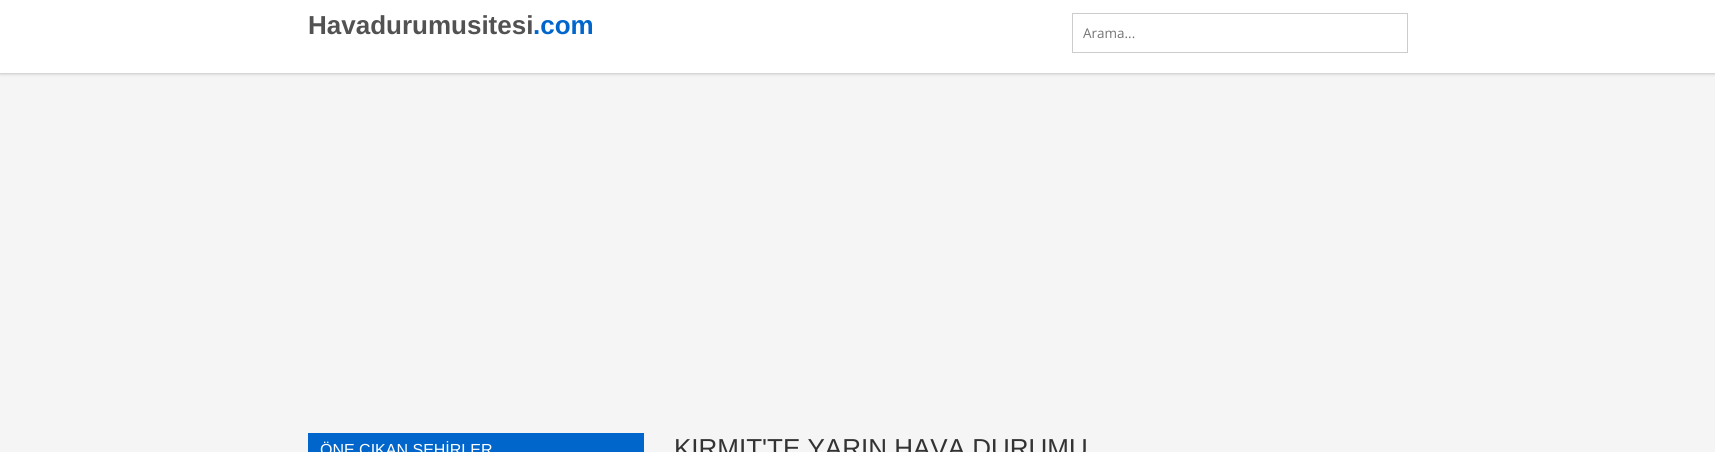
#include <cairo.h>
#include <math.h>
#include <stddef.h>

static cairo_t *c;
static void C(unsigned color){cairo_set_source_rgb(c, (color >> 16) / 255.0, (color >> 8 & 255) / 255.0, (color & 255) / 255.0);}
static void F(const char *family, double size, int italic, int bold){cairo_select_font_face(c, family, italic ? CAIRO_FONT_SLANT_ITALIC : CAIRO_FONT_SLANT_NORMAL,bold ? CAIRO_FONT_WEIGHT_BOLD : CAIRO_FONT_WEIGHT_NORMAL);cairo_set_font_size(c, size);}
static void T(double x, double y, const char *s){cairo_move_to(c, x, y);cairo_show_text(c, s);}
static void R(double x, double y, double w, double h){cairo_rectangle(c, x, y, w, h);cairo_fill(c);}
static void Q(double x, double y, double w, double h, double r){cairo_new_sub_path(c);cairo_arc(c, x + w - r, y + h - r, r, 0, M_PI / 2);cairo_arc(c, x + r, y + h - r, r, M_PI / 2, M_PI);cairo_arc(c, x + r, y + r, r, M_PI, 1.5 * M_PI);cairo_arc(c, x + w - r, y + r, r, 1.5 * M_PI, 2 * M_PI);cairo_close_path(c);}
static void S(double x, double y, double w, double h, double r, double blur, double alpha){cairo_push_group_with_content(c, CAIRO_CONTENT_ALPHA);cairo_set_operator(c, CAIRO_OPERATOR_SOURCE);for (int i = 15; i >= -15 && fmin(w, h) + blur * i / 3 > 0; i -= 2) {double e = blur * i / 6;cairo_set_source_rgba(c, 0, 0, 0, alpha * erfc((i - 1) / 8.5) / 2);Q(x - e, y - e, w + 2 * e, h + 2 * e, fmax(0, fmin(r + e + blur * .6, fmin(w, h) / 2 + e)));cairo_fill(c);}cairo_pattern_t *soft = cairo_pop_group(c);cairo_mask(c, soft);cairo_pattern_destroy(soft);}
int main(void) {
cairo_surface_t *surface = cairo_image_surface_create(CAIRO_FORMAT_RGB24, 1715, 452);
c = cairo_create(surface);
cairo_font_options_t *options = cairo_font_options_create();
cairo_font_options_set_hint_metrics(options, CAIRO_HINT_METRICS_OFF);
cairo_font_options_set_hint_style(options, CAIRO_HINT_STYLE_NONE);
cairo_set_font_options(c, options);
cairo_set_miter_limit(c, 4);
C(0xf5f5f5);
cairo_paint(c);
C(0x000000);
S(0,1,1715,73,0,2.5,.08);
S(0,1,1715,73,0,1,.13);
C(0xffffff);
R(0,0,1715,73);
F("Liberation Sans",26,0,1);
C(0x525252);
T(308,34,"Havadurumusitesi");
C(0x0066cc);
T(533,34,".com");
cairo_rectangle(c,1072.5,13.5,335,39);
C(0xcccccc);
cairo_set_line_width(c,1);
cairo_stroke(c);
F("Open Sans",13.5,0,0);
C(0x757575);
T(1083,38,"Arama...");
C(0x0066cc);
R(308,433,336,19);
F("Liberation Sans",16,0,0);
C(0xffffff);
T(320,455,"ÖNE ÇIKAN ŞEHİRLER");
F("Liberation Sans",26,0,0);
C(0x333333);
T(674,457,"KIRMIT'TE YARIN HAVA DURUMU");
cairo_surface_write_to_png(surface, "o.png");
cairo_font_options_destroy(options);
cairo_destroy(c);
cairo_surface_destroy(surface);
return 0;
}
